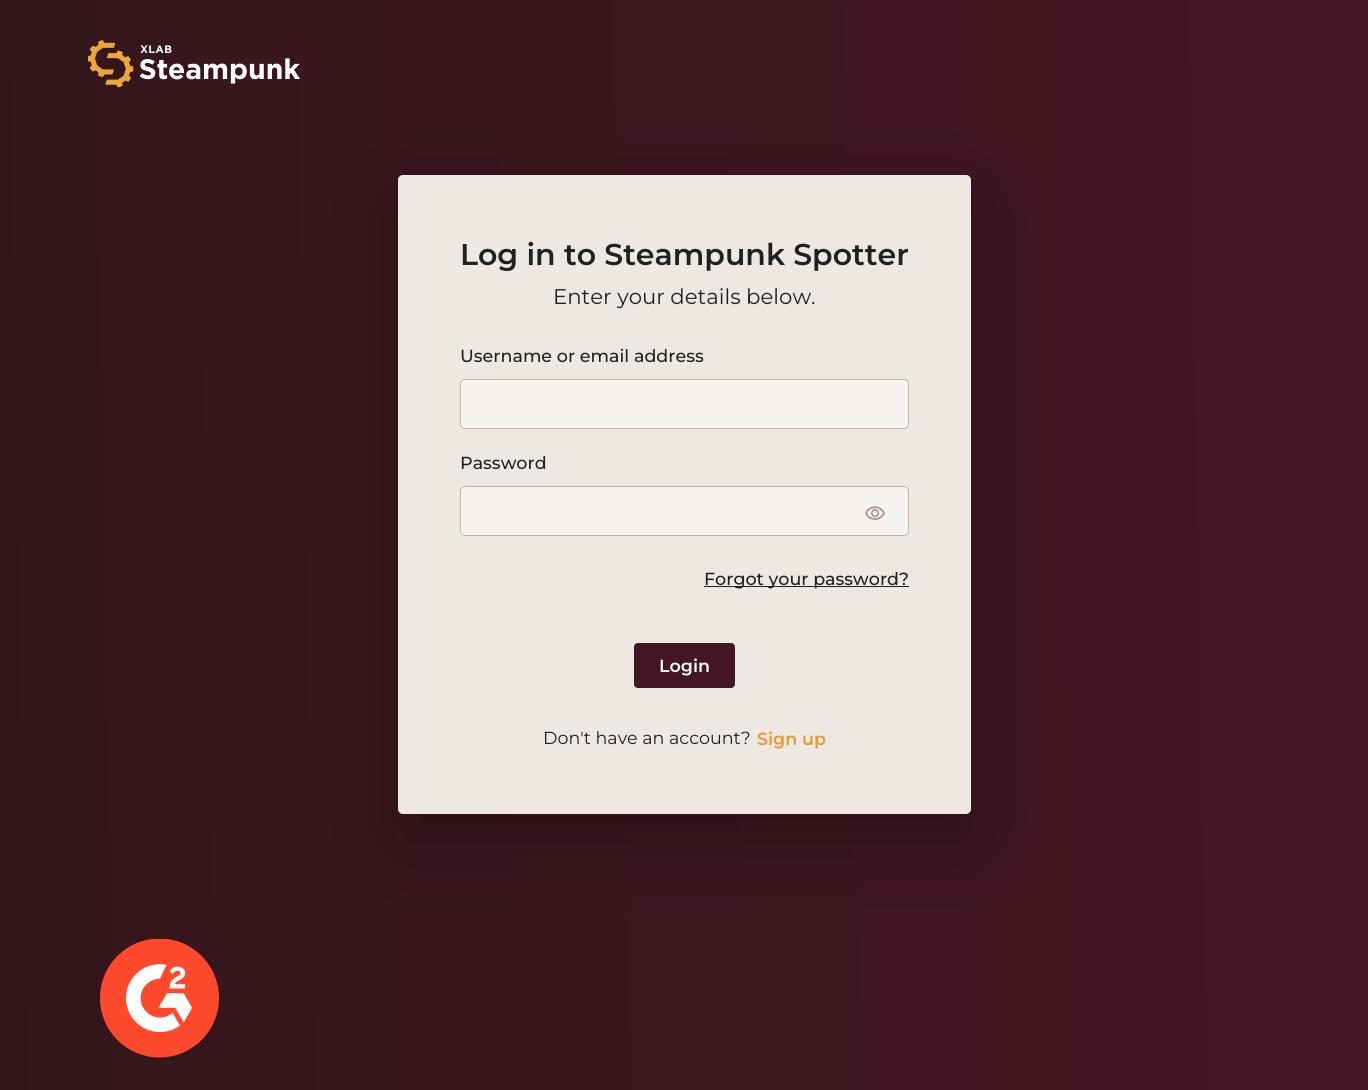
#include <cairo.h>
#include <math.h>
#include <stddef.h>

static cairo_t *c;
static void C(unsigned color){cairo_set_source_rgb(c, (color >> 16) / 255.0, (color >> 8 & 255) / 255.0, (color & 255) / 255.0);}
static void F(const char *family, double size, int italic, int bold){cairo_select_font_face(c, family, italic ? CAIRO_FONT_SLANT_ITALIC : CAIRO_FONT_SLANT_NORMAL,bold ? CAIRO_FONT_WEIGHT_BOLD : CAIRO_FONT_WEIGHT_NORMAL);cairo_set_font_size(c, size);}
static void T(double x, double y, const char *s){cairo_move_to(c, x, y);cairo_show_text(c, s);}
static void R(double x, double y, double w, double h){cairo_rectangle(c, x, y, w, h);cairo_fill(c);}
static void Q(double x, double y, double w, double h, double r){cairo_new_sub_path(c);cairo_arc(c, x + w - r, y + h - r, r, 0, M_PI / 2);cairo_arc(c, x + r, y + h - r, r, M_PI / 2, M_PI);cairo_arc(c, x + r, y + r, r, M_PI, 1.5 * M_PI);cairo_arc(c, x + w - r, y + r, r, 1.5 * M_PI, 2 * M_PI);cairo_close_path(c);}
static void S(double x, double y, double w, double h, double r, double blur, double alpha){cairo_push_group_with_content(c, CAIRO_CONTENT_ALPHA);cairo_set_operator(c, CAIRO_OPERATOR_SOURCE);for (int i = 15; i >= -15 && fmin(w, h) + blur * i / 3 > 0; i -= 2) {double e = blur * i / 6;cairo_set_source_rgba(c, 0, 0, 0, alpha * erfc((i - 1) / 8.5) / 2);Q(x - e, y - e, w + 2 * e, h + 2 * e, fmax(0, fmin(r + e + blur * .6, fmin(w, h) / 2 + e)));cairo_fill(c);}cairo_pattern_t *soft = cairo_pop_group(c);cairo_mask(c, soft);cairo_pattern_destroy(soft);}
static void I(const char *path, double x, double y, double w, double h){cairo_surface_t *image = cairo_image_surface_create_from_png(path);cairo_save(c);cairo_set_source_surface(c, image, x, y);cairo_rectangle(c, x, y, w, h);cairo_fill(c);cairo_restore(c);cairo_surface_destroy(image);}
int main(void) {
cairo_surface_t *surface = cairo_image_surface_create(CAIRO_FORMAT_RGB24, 1368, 1090);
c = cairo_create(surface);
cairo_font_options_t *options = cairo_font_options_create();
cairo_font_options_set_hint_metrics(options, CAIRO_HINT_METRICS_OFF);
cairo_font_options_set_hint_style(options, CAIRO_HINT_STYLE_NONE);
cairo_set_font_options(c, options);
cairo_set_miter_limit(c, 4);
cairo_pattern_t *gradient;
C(0xffffff);
cairo_paint(c);
gradient = cairo_pattern_create_linear(-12,725,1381,701);
cairo_pattern_add_color_stop_rgba(gradient,0,0.188,0.086,0.098,1);
cairo_pattern_add_color_stop_rgba(gradient,.24,0.227,0.086,0.118,1);
cairo_pattern_add_color_stop_rgba(gradient,1,0.263,0.086,0.137,1);
cairo_set_source(c,gradient);
cairo_pattern_destroy(gradient);
R(0,0,1368,1090);
I("1.png",88,40,212,48);
C(0x000000);
S(398,200,573,639,5,37.5,.29);
C(0xeee8e3);
Q(398,175,573,639,5);
cairo_fill(c);
F("Montserrat Thin",30,0,0);
C(0x212121);
T(460,265,"Log in to Steampunk Spotter");
F("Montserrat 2 Thin",21.25,0,0);
T(553,304,"Enter your details below.");
F("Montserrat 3 Thin",17.5,0,0);
T(460,362,"Username or email address");
C(0xf7f3ef);
Q(460.5,379.5,448,49,4.5);
cairo_fill_preserve(c);
C(0xc4b3ab);
cairo_set_line_width(c,1);
cairo_stroke(c);
C(0x212121);
T(460,469,"Password");
C(0xf7f3ef);
Q(460.5,486.5,448,49,4.5);
cairo_fill_preserve(c);
C(0xc4b3ab);
cairo_stroke(c);
I("2.png",865,506,20,14);
C(0x212121);
R(704,586,205,1);
T(704,585,"Forgot your password?");
C(0x431623);
Q(634,643,101,45,4);
cairo_fill(c);
F("Montserrat Thin",17.5,0,0);
C(0xffffff);
T(659,672,"Login");
F("Montserrat 2 Thin",17.5,0,0);
C(0x212121);
T(543,744,"Don't have an account?");
F("Montserrat Thin",17.5,0,0);
C(0xe69a32);
T(757,745,"Sign up");
I("3.png",100,939,119,119);
cairo_surface_write_to_png(surface, "o.png");
cairo_font_options_destroy(options);
cairo_destroy(c);
cairo_surface_destroy(surface);
return 0;
}
